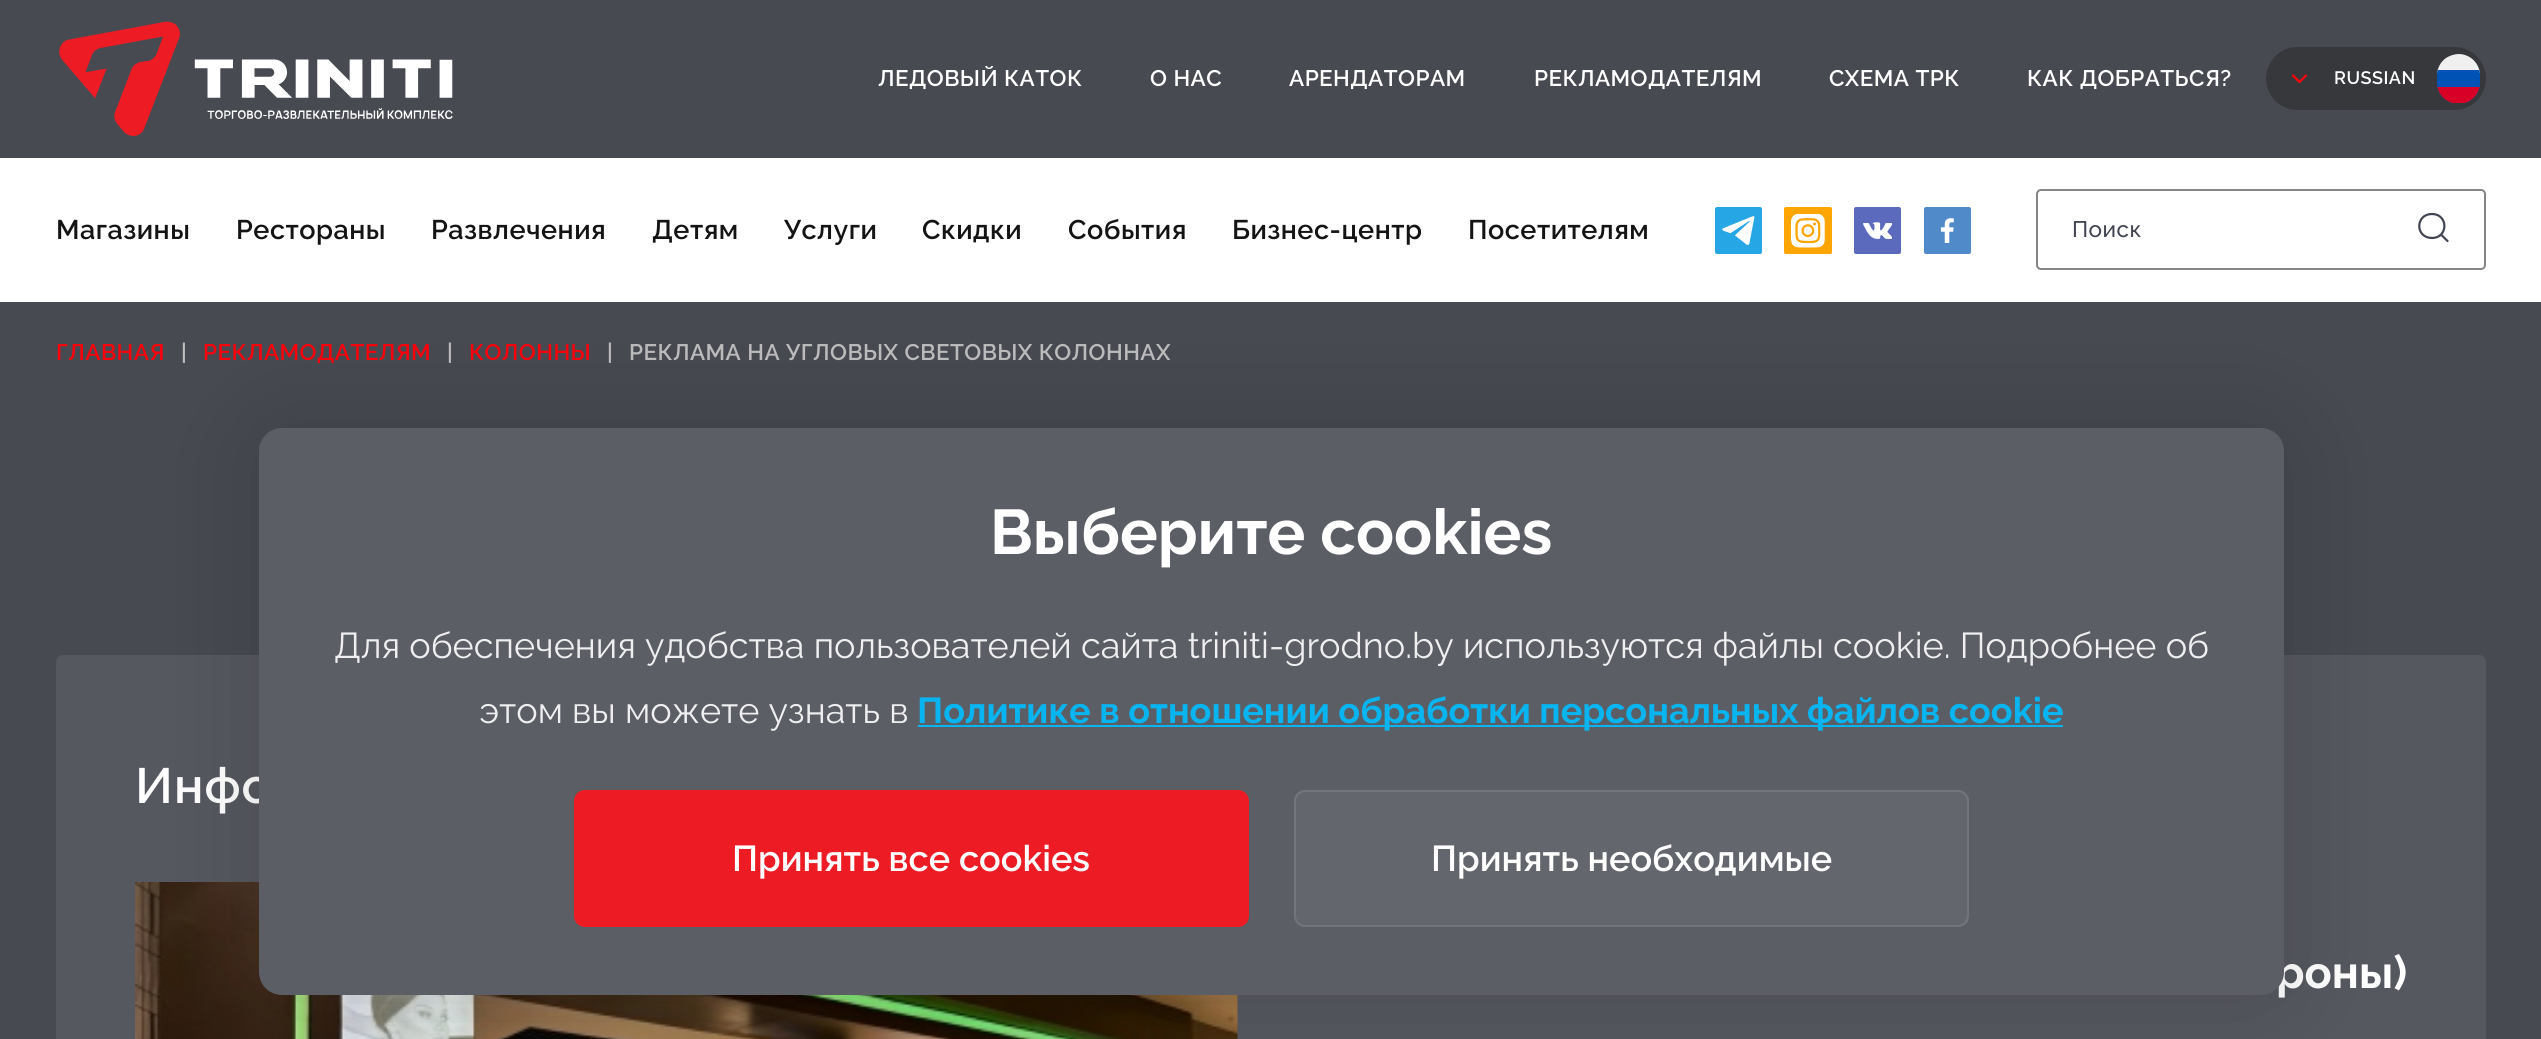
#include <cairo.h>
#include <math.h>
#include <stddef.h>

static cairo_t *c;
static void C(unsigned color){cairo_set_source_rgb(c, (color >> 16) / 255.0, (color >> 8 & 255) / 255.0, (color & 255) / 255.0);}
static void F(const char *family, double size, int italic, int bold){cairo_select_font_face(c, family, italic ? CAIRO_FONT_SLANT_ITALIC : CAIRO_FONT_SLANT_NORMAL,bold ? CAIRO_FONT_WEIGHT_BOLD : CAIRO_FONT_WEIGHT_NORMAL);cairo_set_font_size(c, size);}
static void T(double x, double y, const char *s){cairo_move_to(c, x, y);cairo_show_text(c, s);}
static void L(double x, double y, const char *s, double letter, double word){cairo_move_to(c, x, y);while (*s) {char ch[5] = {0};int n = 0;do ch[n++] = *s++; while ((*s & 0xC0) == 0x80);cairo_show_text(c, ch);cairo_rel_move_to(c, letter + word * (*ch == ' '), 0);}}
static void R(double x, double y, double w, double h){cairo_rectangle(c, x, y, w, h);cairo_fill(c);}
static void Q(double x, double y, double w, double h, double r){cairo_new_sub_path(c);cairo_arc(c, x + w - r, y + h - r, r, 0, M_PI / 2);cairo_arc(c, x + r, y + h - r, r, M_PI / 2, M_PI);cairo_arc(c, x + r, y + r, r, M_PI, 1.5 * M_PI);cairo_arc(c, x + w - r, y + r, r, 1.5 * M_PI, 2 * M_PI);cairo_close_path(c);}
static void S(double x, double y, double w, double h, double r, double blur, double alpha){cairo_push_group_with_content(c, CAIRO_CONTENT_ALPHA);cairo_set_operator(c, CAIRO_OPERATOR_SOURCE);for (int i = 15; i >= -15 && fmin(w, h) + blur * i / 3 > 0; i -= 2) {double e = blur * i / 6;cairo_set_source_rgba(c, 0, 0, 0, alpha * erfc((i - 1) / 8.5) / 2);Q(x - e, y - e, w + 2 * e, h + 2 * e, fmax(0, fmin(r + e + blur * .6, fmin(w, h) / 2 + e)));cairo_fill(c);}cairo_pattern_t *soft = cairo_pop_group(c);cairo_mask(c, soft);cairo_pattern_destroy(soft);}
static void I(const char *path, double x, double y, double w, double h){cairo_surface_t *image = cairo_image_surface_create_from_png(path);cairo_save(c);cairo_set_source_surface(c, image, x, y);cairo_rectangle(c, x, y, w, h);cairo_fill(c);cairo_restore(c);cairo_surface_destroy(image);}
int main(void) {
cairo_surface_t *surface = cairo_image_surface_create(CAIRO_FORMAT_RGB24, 2541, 1039);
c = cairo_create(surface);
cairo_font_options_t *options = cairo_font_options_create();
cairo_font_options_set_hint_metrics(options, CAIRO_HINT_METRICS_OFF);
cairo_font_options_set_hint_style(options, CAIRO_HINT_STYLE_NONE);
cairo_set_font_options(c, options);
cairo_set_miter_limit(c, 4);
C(0xffffff);
cairo_paint(c);
C(0x474a51);
R(0,0,2541,158);
I("1.png",59,21,394,115);
F("Raleway SemiBold",22.5,0,0);
C(0xffffff);
L(878,86,"ЛЕДОВЫЙ КАТОК",.45,0);
L(1150,86,"О НАС",.45,0);
L(1289,86,"АРЕНДАТОРАМ",.45,0);
L(1534,86,"РЕКЛАМОДАТЕЛЯМ",.45,0);
L(1829,86,"СХЕМА ТРК",.45,0);
L(2027,86,"КАК ДОБРАТЬСЯ?",.45,0);
C(0x37383c);
Q(2266,47,220,63,31.5);
cairo_fill(c);
cairo_new_path(c);
cairo_move_to(c,2293,75.5);
cairo_line_to(c,2299.5,82);
cairo_line_to(c,2306,75.5);
C(0xff010b);
cairo_set_line_width(c,2.2);
cairo_set_line_cap(c,CAIRO_LINE_CAP_ROUND);
cairo_set_line_join(c,CAIRO_LINE_JOIN_ROUND);
cairo_stroke(c);
F("Raleway SemiBold",18,0,0);
C(0xffffff);
L(2334,84,"RUSSIAN",.5,0);
cairo_save(c);
Q(2437,54,43,50,21.5);
cairo_clip(c);
Q(2435,54,49,50,24.5);
cairo_clip(c);
C(0xf0f0f0);
R(2437,54,43,19);
C(0x0052b4);
R(2437,70,43,33);
C(0xd80027);
R(2437,87,43,16);
cairo_restore(c);
F("Raleway SemiBold",27,0,0);
C(0x141414);
L(56,239,"Магазины",.5,0);
L(236,239,"Рестораны",.5,0);
L(431,239,"Развлечения",.5,0);
L(652,239,"Детям",.5,0);
L(784,239,"Услуги",.5,0);
L(922,239,"Скидки",.5,0);
L(1068,239,"События",.5,0);
L(1232,239,"Бизнес-центр",.5,0);
L(1468,239,"Посетителям",.5,0);
C(0x27a6e5);
Q(1715,207,47,47,2);
cairo_fill(c);
I("2.png",1722,216,33,29);
C(0xffa501);
Q(1784,207,48,47,2);
cairo_fill(c);
I("3.png",1791,214,34,34);
C(0x5b6abd);
Q(1854,207,47,47,2);
cairo_fill(c);
I("4.png",1863,222,29,17);
C(0x518ac9);
Q(1924,207,47,47,2);
cairo_fill(c);
I("5.png",1940,218,14,25);
Q(2037,190,448,79,4);
C(0x868686);
cairo_set_line_width(c,2);
cairo_set_line_cap(c,CAIRO_LINE_CAP_BUTT);
cairo_set_line_join(c,CAIRO_LINE_JOIN_MITER);
cairo_stroke(c);
F("Raleway Medium",22.5,0,0);
C(0x414451);
L(2072,237,"Поиск",.45,0);
cairo_new_path(c);
cairo_move_to(c,2432,238);
cairo_curve_to(c,2448.5,238,2448.5,214,2432,214);
cairo_curve_to(c,2415,214,2415,238,2432,238);
cairo_close_path(c);
cairo_move_to(c,2447.5,241);
cairo_line_to(c,2441,234.5);
cairo_set_line_width(c,2.2);
cairo_set_line_cap(c,CAIRO_LINE_CAP_ROUND);
cairo_set_line_join(c,CAIRO_LINE_JOIN_ROUND);
cairo_stroke(c);
C(0x474a51);
R(0,302,2541,737);
F("Raleway SemiBold",22.5,0,0);
C(0xff010b);
L(56,360,"ГЛАВНАЯ",.45,0);
C(0xbdbdbd);
L(181,360,"|",.45,0);
C(0xff010b);
L(203,360,"РЕКЛАМОДАТЕЛЯМ",.45,0);
C(0xbdbdbd);
L(447,360,"|",.45,0);
C(0xff010b);
L(469,360,"КОЛОННЫ",.45,0);
C(0xbdbdbd);
L(607,360,"|",.45,0);
L(629,360,"РЕКЛАМА НА УГЛОВЫХ СВЕТОВЫХ КОЛОННАХ",.45,0);
C(0x565860);
Q(56,655,2430,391,7);
cairo_fill(c);
F("Raleway SemiBold",49.5,0,0);
C(0xffffff);
L(135,803,"Инфо",1,0);
I("6.png",135,882,1103,157);
F("Raleway",45,0,1);
T(2276,988,"роны)");
C(0x000000);
S(259,428,2025,567,23,56,.15);
C(0x5b5e65);
Q(259,428,2025,567,23);
cairo_fill(c);
F("Raleway",63,0,1);
C(0xffffff);
T(990,554,"Выберите cookies");
F("Raleway",36,0,0);
C(0xefeff0);
T(334,658,"Для обеспечения удобства пользователей сайта triniti-grodno.by используются файлы cookie. Подробнее об");
T(479,723,"этом вы можете узнать в");
C(0x09b5f0);
R(918,725,1145,2);
F("Raleway",36,0,1);
T(917,723,"Политике в отношении обработки персональных файлов cookie");
C(0xed1c24);
Q(574,790,675,137,11);
cairo_fill(c);
F("Raleway SemiBold",36,0,0);
C(0xffffff);
T(732,871,"Принять все cookies");
C(0x63666d);
Q(1294,790,675,137,11);
cairo_fill(c);
Q(1295,791,673,135,10);
cairo_set_source_rgba(c,1,1,1,0.1);
cairo_set_line_width(c,2);
cairo_set_line_cap(c,CAIRO_LINE_CAP_BUTT);
cairo_set_line_join(c,CAIRO_LINE_JOIN_MITER);
cairo_stroke(c);
C(0xffffff);
T(1431,871,"Принять необходимые");
cairo_surface_write_to_png(surface, "o.png");
cairo_font_options_destroy(options);
cairo_destroy(c);
cairo_surface_destroy(surface);
return 0;
}
